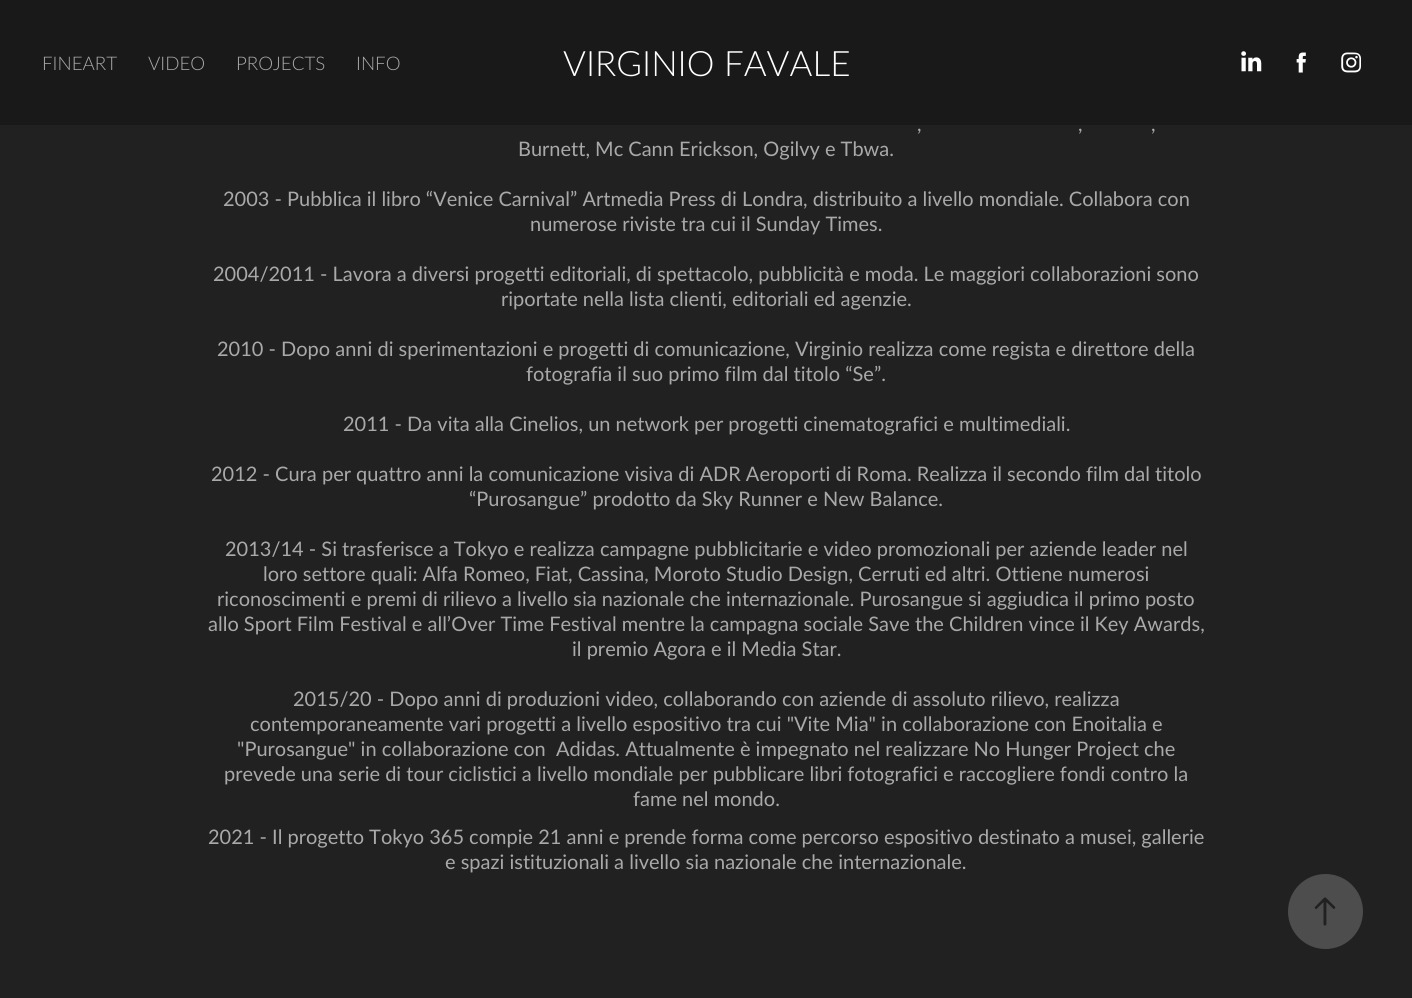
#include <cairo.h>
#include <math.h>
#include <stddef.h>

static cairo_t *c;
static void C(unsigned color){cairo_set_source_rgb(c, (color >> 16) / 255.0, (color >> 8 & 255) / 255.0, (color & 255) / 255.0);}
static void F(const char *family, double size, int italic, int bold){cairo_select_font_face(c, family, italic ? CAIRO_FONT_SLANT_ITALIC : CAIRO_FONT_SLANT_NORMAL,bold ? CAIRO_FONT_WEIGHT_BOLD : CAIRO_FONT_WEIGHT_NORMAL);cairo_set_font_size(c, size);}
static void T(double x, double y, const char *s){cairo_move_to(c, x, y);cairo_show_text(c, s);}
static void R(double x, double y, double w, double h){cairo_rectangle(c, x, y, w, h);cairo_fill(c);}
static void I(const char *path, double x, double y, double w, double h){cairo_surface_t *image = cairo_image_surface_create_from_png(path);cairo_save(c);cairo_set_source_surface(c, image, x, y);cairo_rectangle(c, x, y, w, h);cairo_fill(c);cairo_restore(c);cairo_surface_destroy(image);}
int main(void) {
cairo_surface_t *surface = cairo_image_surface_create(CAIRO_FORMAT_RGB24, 1412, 998);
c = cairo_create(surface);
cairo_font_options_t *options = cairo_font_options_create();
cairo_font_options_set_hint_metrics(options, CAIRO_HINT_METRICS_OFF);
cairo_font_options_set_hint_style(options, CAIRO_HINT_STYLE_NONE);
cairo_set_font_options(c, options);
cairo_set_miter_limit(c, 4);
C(0x212121);
cairo_paint(c);
C(0x191919);
R(0,0,1412,125);
F("Lato Light",18.75,0,0);
C(0xa9a9a9);
T(42,70,"FINEART");
T(148,70,"VIDEO");
T(236,70,"PROJECTS");
T(356,70,"INFO");
F("Lato Light",35,0,0);
C(0xffffff);
T(563,76,"VIRGINIO FAVALE");
I("1.png",1241,51,21,21);
I("2.png",1296,52,10,21);
I("3.png",1341,52,20,21);
F("Lato",20,0,0);
C(0xa9a9a9);
T(917,131,",");
T(1078,131,",");
T(1151,131,",");
T(518,156,"Burnett, Mc Cann Erickson, Ogilvy e Tbwa.");
T(223,206,"2003 - Pubblica il libro “Venice Carnival” Artmedia Press di Londra, distribuito a livello mondiale. Collabora con");
T(530,231,"numerose riviste tra cui il Sunday Times.");
T(213,281,"2004/2011 - Lavora a diversi progetti editoriali, di spettacolo, pubblicità e moda. Le maggiori collaborazioni sono");
T(501,306,"riportate nella lista clienti, editoriali ed agenzie.");
T(217,356,"2010 - Dopo anni di sperimentazioni e progetti di comunicazione, Virginio realizza come regista e direttore della");
T(526,381,"fotografia il suo primo film dal titolo “Se”.");
T(343,431,"2011 - Da vita alla Cinelios, un network per progetti cinematografici e multimediali.");
T(211,481,"2012 - Cura per quattro anni la comunicazione visiva di ADR Aeroporti di Roma. Realizza il secondo film dal titolo");
T(469,506,"“Purosangue” prodotto da Sky Runner e New Balance.");
T(225,556,"2013/14 - Si trasferisce a Tokyo e realizza campagne pubblicitarie e video promozionali per aziende leader nel");
T(263,581,"loro settore quali: Alfa Romeo, Fiat, Cassina, Moroto Studio Design, Cerruti ed altri. Ottiene numerosi");
T(217,606,"riconoscimenti e premi di rilievo a livello sia nazionale che internazionale. Purosangue si aggiudica il primo posto");
T(208,631,"allo Sport Film Festival e all’Over Time Festival mentre la campagna sociale Save the Children vince il Key Awards,");
T(572,656,"il premio Agora e il Media Star.");
T(293,706,"2015/20 - Dopo anni di produzioni video, collaborando con aziende di assoluto rilievo, realizza");
T(250,731,"contemporaneamente vari progetti a livello espositivo tra cui \"Vite Mia\" in collaborazione con Enoitalia e");
T(237,756,"\"Purosangue\" in collaborazione con  Adidas. Attualmente è impegnato nel realizzare No Hunger Project che");
T(224,781,"prevede una serie di tour ciclistici a livello mondiale per pubblicare libri fotografici e raccogliere fondi contro la");
T(633,806,"fame nel mondo.");
T(208,844,"2021 - Il progetto Tokyo 365 compie 21 anni e prende forma come percorso espositivo destinato a musei, gallerie");
T(445,869,"e spazi istituzionali a livello sia nazionale che internazionale.");
C(0x4d4d4d);
cairo_new_path(c);
cairo_arc(c,1325.5,911.5,37.5,0,2 * M_PI);
cairo_fill(c);
I("4.png",1314,897,22,29);
cairo_surface_write_to_png(surface, "o.png");
cairo_font_options_destroy(options);
cairo_destroy(c);
cairo_surface_destroy(surface);
return 0;
}
